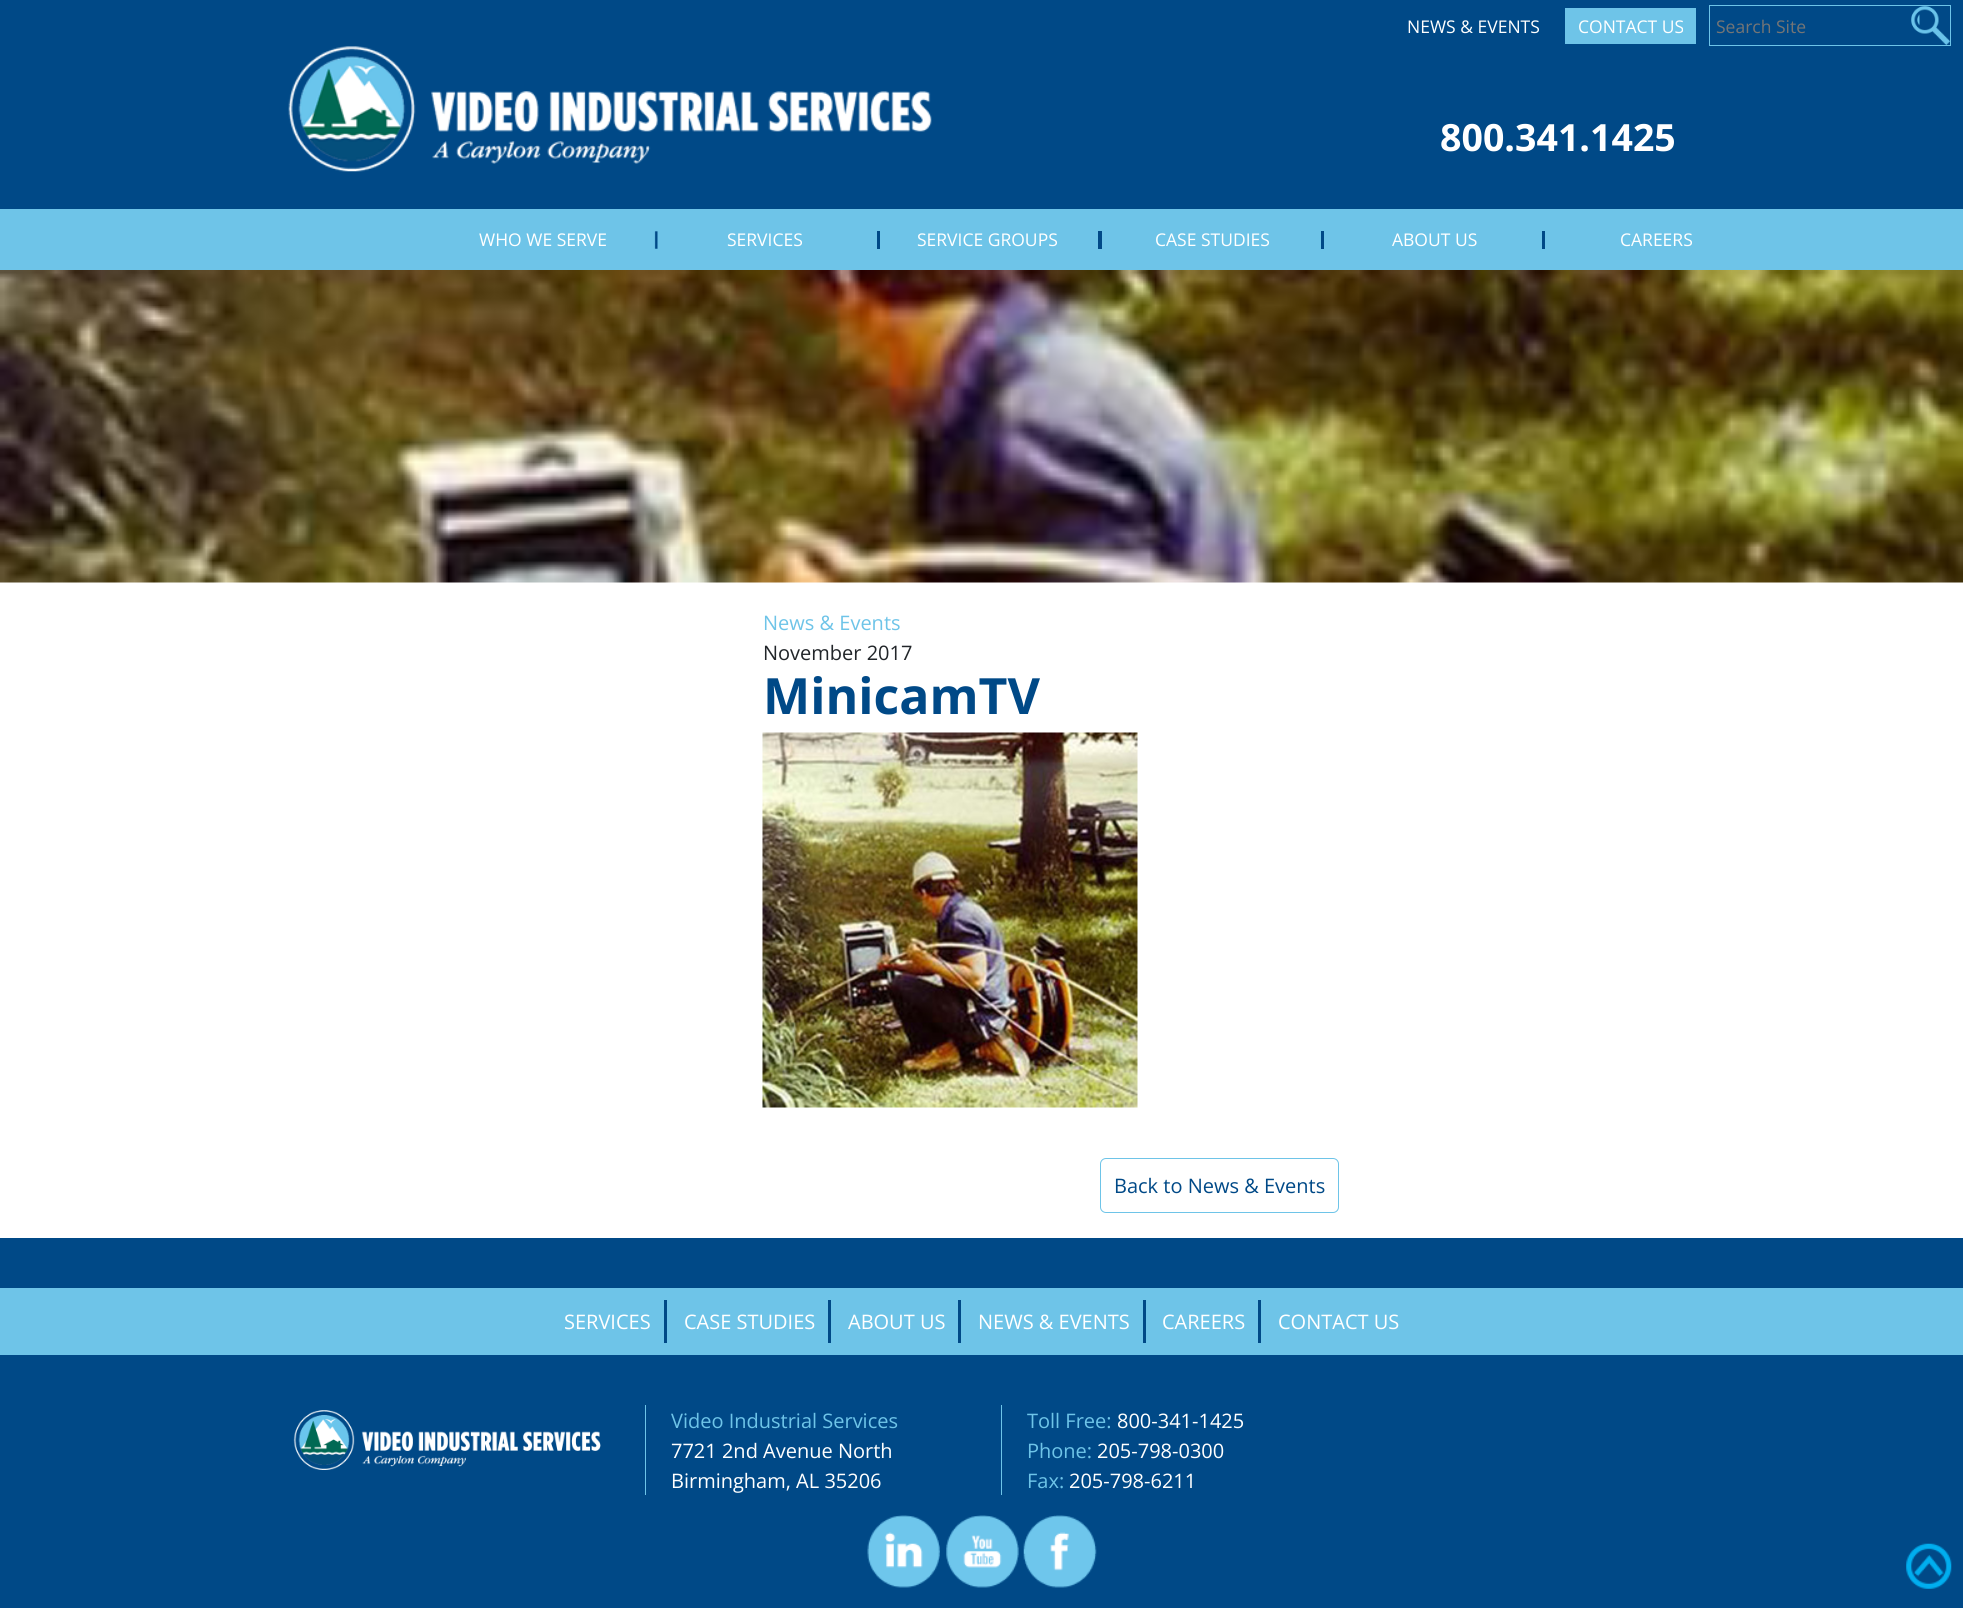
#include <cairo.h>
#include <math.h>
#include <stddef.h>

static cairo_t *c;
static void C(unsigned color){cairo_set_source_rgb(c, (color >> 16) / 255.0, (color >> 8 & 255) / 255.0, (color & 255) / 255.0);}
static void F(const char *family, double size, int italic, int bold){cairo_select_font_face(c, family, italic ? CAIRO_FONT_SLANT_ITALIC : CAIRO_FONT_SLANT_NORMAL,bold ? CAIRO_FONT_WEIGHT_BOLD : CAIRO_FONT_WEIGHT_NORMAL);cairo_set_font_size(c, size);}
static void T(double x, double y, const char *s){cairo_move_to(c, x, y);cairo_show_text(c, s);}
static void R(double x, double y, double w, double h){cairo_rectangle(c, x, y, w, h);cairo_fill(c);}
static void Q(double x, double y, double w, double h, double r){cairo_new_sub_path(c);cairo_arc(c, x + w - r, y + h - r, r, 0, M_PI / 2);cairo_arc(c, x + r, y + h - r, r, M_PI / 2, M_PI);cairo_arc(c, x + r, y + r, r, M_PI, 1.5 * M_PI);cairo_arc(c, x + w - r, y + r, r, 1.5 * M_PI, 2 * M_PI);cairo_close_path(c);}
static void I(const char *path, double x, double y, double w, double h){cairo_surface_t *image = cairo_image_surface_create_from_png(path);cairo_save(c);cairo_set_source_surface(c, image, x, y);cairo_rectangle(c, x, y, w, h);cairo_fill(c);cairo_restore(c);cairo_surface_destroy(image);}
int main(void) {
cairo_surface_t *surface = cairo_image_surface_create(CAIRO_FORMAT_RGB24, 1963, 1613);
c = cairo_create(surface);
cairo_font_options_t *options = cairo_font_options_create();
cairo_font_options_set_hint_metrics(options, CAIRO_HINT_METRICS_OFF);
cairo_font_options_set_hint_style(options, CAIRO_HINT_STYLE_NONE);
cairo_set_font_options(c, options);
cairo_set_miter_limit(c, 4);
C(0xffffff);
cairo_paint(c);
C(0x004987);
R(0,0,1963,209);
F("Open Sans",17.5,0,0);
C(0xffffff);
T(1407,33,"NEWS & EVENTS");
C(0x6ec4e8);
R(1565,8,131,36);
C(0xffffff);
T(1578,33,"CONTACT US");
I("1.png",1911,6,39,39);
cairo_rectangle(c,1709.5,5.5,241,40);
C(0x6ec4e8);
cairo_set_line_width(c,1);
cairo_stroke(c);
C(0x757575);
T(1716,33,"Search Site");
I("2.png",288,46,644,126);
F("Open Sans",37.5,0,1);
C(0xffffff);
T(1440,151,"800.341.1425");
C(0x6ec4e8);
R(0,209,1963,61);
I("3.png",654,231,4,18);
F("Open Sans",17.5,0,0);
C(0xffffff);
T(479,246,"WHO WE SERVE");
C(0x004987);
R(877,231,3,18);
C(0xffffff);
T(727,246,"SERVICES");
C(0x004987);
R(1098,231,4,18);
C(0xffffff);
T(917,246,"SERVICE GROUPS");
C(0x004987);
R(1321,231,3,18);
C(0xffffff);
T(1155,246,"CASE STUDIES");
C(0x004987);
R(1542,231,3,18);
C(0xffffff);
T(1392,246,"ABOUT US");
T(1620,246,"CAREERS");
I("4.png",0,270,1963,313);
F("Open Sans",20,0,0);
C(0x6ec4e8);
T(763,630,"News & Events");
C(0x212529);
T(763,660,"November 2017");
F("Open Sans",50,0,1);
C(0x004987);
T(763,714,"MinicamTV");
I("5.png",762,732,376,376);
Q(1100.5,1158.5,238,54,5.5);
C(0x6ec4e8);
cairo_stroke(c);
F("Open Sans",20,0,0);
C(0x004987);
T(1114,1193,"Back to News & Events");
R(0,1238,1963,370);
C(0x6ec4e8);
R(0,1288,1963,67);
C(0x004987);
R(664,1300,3,43);
C(0xffffff);
T(564,1329,"SERVICES");
C(0x004987);
R(828,1300,3,43);
C(0xffffff);
T(684,1329,"CASE STUDIES");
C(0x004987);
R(958,1300,3,43);
C(0xffffff);
T(848,1329,"ABOUT US");
C(0x004987);
R(1143,1300,3,43);
C(0xffffff);
T(978,1329,"NEWS & EVENTS");
C(0x004987);
R(1258,1300,3,43);
C(0xffffff);
T(1162,1329,"CAREERS");
T(1278,1329,"CONTACT US");
I("6.png",293,1410,308,60);
C(0x6ec4e8);
R(645,1405,1,90);
T(671,1428,"Video Industrial Services");
C(0xffffff);
T(671,1458,"7721 2nd Avenue North");
T(671,1488,"Birmingham, AL 35206");
C(0x6ec4e8);
R(1001,1405,1,90);
T(1027,1428,"Toll Free:");
C(0xffffff);
T(1117,1428,"800-341-1425");
C(0x6ec4e8);
T(1027,1458,"Phone:");
C(0xffffff);
T(1097,1458,"205-798-0300");
C(0x6ec4e8);
T(1027,1488,"Fax:");
C(0xffffff);
T(1069,1488,"205-798-6211");
I("7.png",867,1515,73,73);
I("8.png",946,1515,73,73);
I("9.png",1023,1515,74,73);
I("10.png",1906,1543,46,46);
cairo_surface_write_to_png(surface, "o.png");
cairo_font_options_destroy(options);
cairo_destroy(c);
cairo_surface_destroy(surface);
return 0;
}
